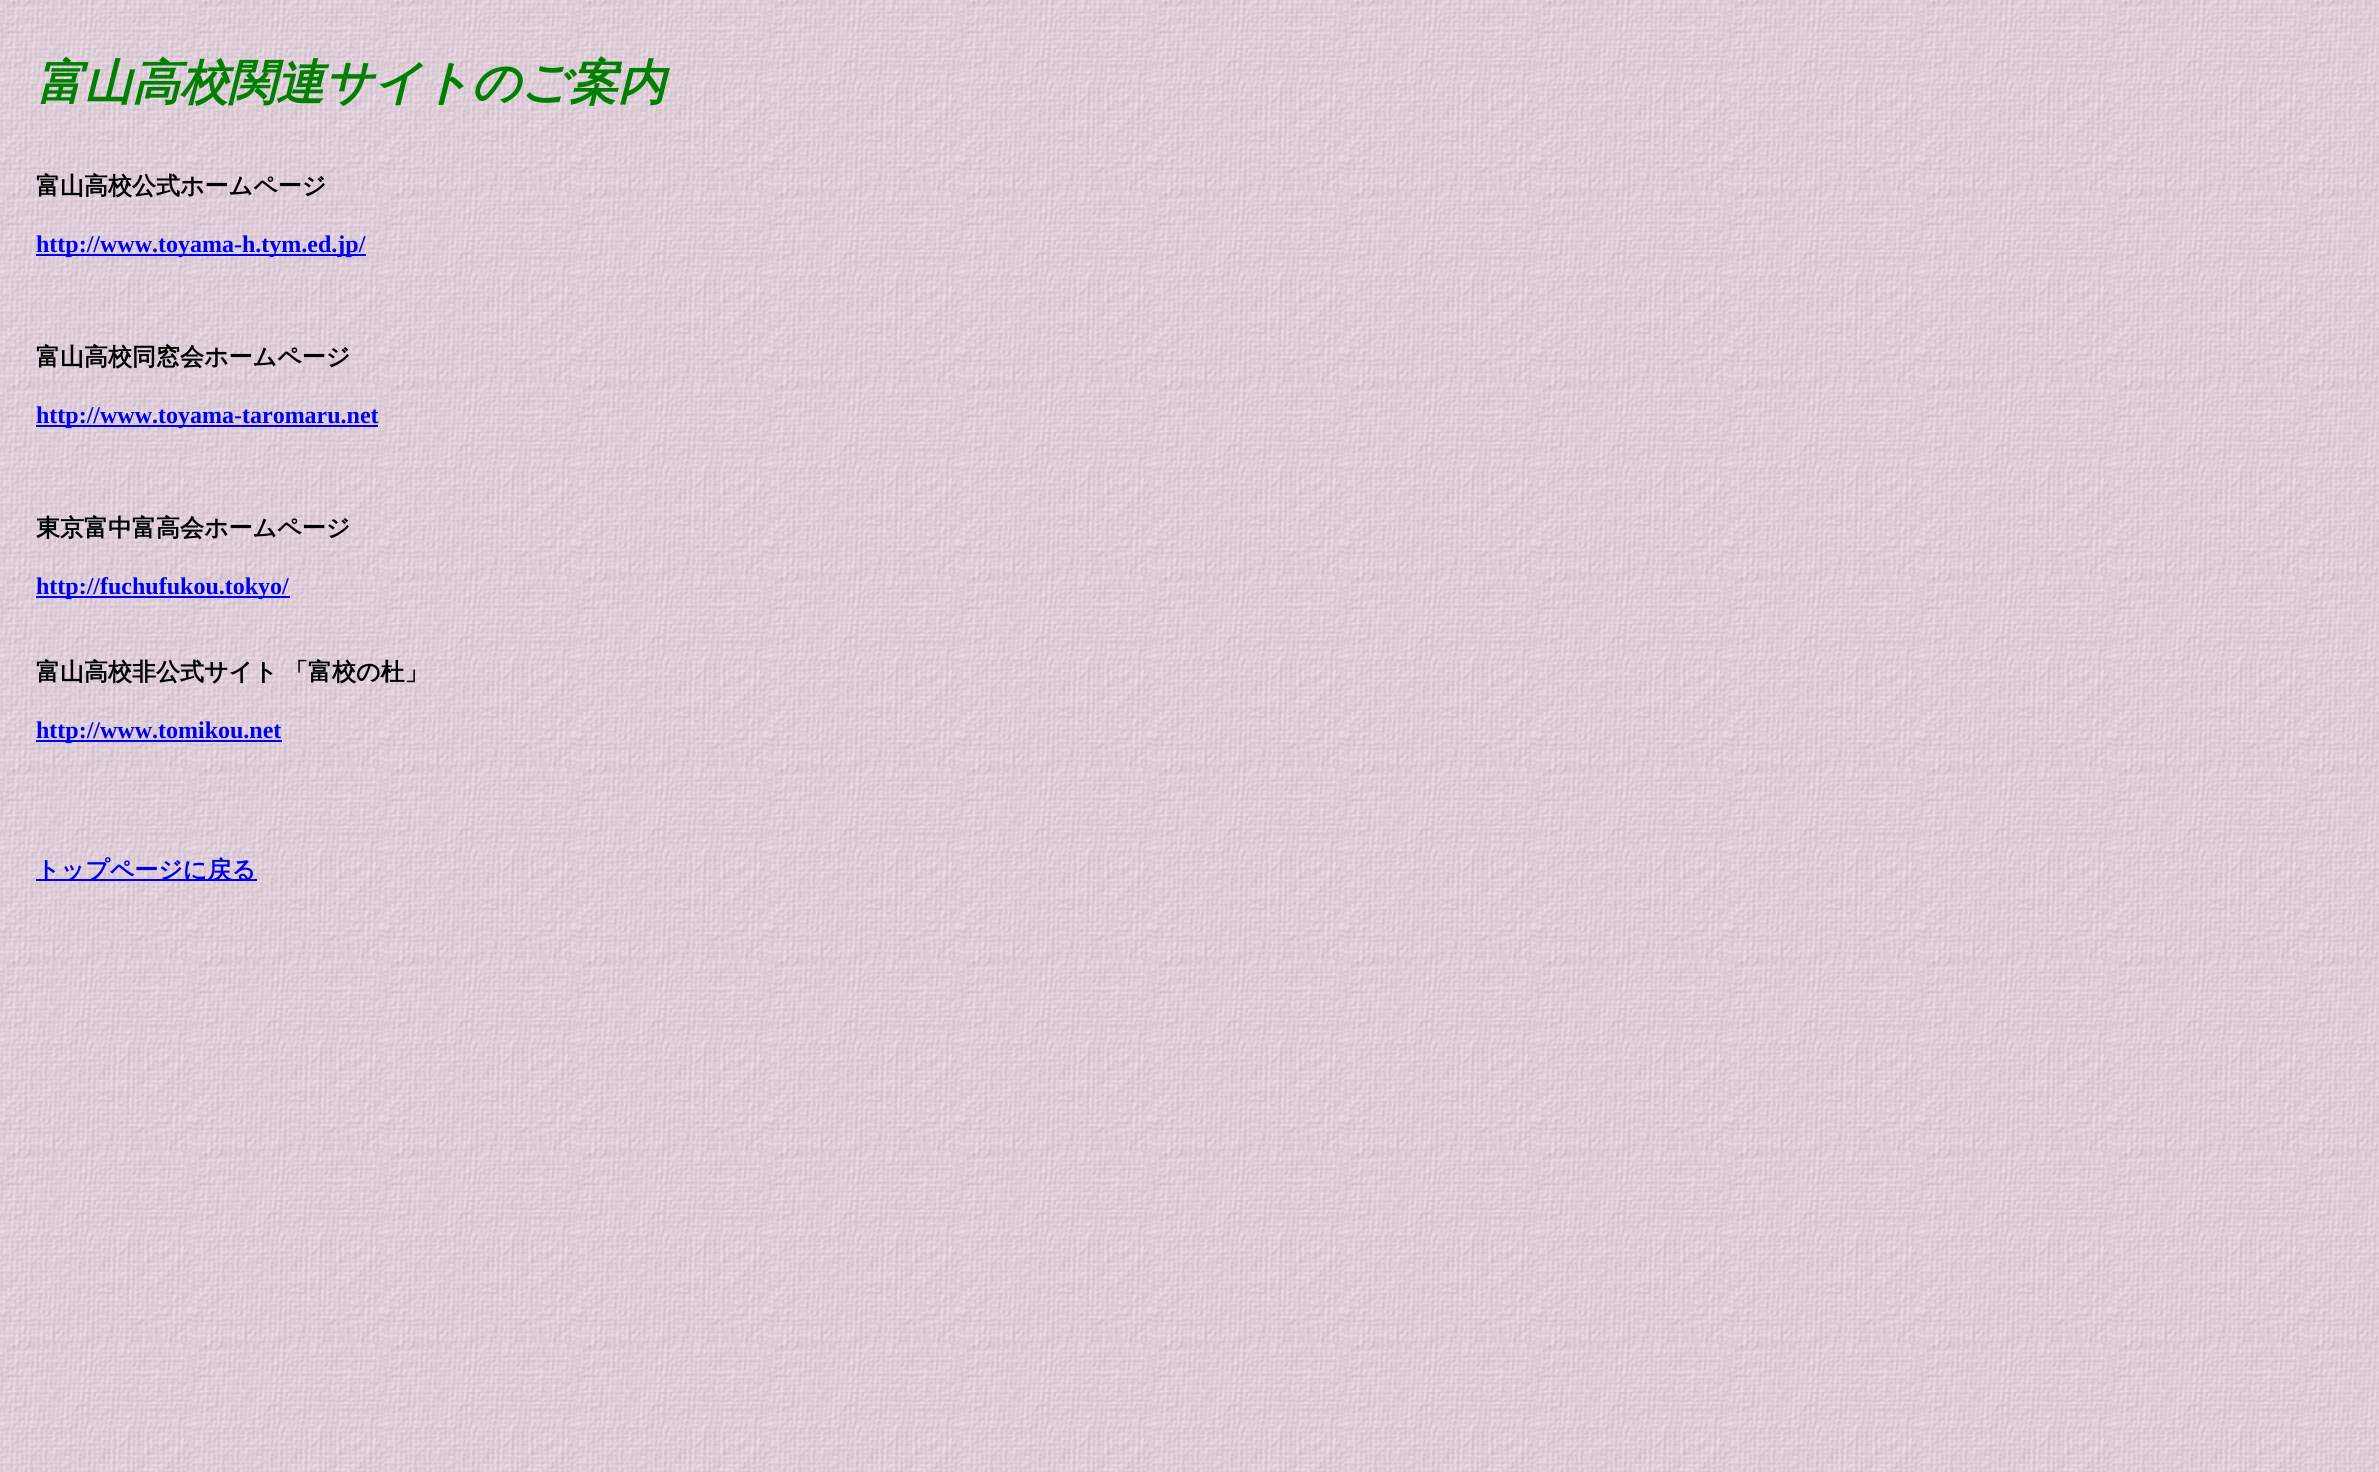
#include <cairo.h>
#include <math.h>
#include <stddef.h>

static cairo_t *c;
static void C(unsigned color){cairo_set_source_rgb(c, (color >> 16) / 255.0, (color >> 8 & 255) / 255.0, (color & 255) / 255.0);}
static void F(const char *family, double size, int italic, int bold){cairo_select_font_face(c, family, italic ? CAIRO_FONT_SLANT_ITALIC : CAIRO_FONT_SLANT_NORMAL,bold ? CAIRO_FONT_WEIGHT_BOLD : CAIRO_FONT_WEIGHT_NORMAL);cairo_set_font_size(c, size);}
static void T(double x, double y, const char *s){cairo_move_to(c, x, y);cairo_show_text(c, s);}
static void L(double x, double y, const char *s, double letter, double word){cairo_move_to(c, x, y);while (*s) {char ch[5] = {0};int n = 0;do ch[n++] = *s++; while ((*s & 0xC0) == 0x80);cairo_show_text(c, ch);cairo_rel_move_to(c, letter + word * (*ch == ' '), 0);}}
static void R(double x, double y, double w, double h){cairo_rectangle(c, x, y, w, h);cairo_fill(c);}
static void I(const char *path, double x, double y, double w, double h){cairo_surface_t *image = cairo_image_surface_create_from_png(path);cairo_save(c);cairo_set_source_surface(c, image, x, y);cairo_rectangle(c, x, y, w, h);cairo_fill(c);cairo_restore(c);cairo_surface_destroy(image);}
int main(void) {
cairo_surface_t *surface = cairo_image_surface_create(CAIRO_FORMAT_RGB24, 2379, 1472);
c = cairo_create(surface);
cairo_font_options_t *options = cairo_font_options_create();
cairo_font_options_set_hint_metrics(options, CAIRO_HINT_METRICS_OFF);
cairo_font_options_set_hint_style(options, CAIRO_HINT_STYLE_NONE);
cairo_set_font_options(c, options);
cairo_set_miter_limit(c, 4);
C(0xffffff);
cairo_paint(c);
I("1.png",0,0,2379,1472);
F("WenQuanYi Zen Hei",48,1,1);
C(0x008000);
T(36,99,"富山高校関連サイトのご案内");
F("WenQuanYi Zen Hei",24,0,1);
C(0x000000);
T(36,194,"富山高校公式ホームページ");
C(0x0000ee);
R(36,254,330,2);
F("Liberation Serif",24,0,1);
T(36,252,"http://www.toyama-h.tym.ed.jp/");
F("WenQuanYi Zen Hei",24,0,1);
C(0x000000);
T(36,365,"富山高校同窓会ホームページ");
C(0x0000ee);
R(36,425,342,2);
F("Liberation Serif",24,0,1);
T(36,423,"http://www.toyama-taromaru.net");
F("WenQuanYi Zen Hei",24,0,1);
C(0x000000);
T(36,536,"東京富中富高会ホームページ");
C(0x0000ee);
R(36,596,254,2);
F("Liberation Serif",24,0,1);
T(36,594,"http://fuchufukou.tokyo/");
F("WenQuanYi Zen Hei",24,0,1);
C(0x000000);
L(36,680,"富山高校非公式サイト 「富校の杜」",0,-1);
C(0x0000ee);
R(36,740,246,2);
F("Liberation Serif",24,0,1);
T(36,738,"http://www.tomikou.net");
R(36,879,221,2);
F("WenQuanYi Zen Hei",24,0,1);
T(36,878,"トップページに戻る");
cairo_surface_write_to_png(surface, "o.png");
cairo_font_options_destroy(options);
cairo_destroy(c);
cairo_surface_destroy(surface);
return 0;
}
